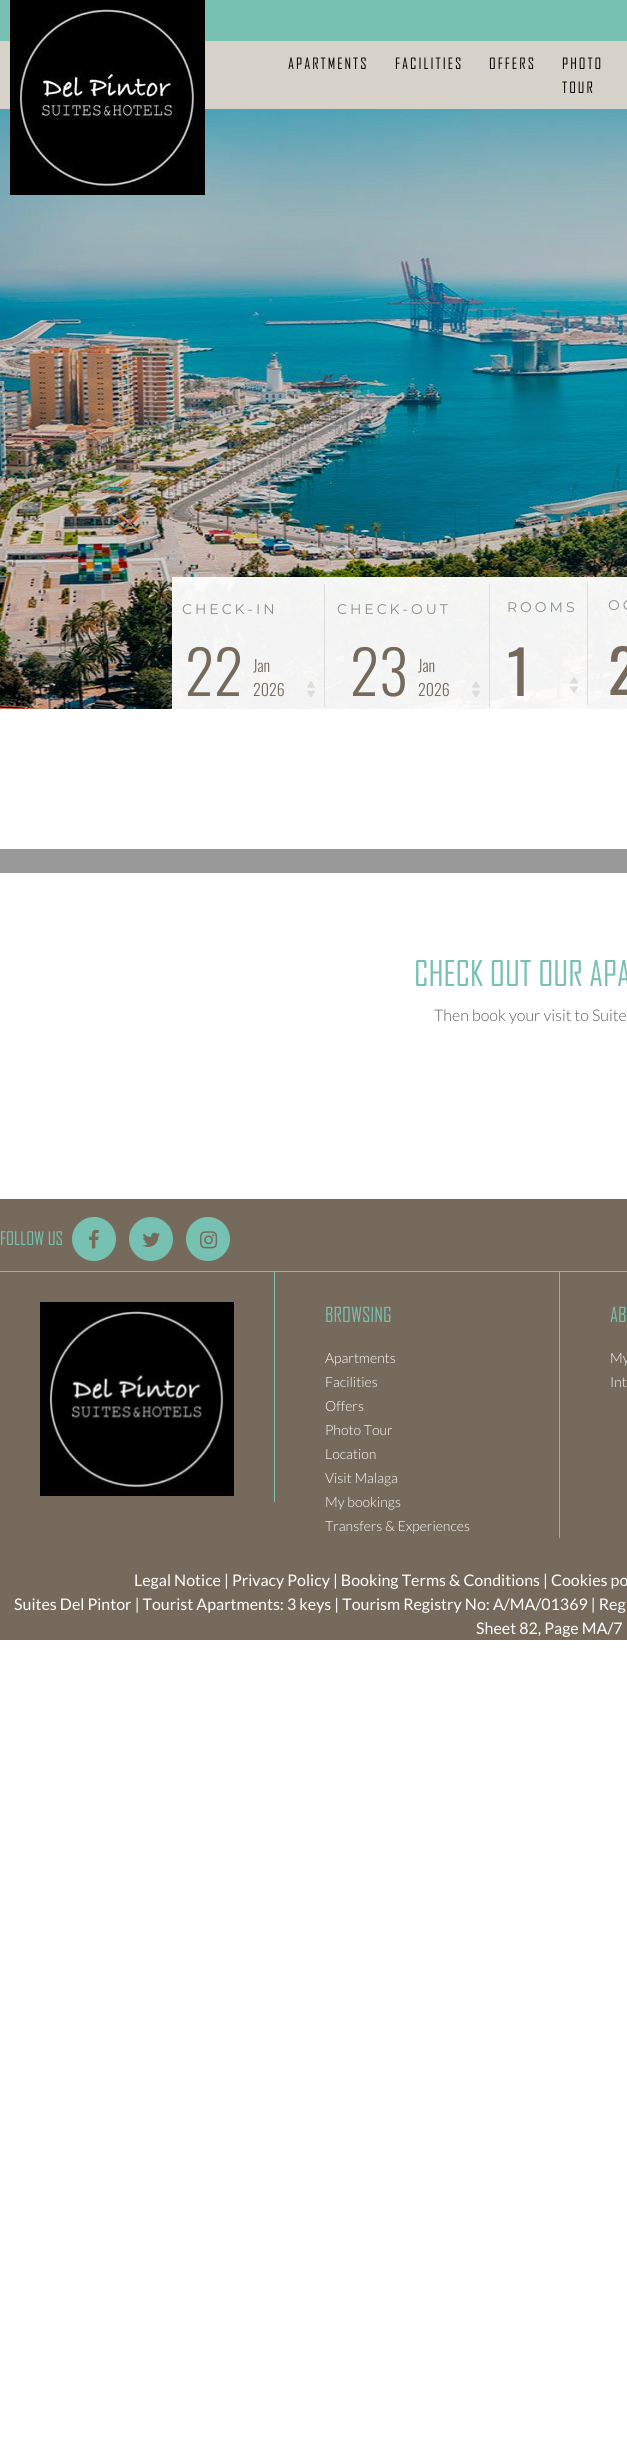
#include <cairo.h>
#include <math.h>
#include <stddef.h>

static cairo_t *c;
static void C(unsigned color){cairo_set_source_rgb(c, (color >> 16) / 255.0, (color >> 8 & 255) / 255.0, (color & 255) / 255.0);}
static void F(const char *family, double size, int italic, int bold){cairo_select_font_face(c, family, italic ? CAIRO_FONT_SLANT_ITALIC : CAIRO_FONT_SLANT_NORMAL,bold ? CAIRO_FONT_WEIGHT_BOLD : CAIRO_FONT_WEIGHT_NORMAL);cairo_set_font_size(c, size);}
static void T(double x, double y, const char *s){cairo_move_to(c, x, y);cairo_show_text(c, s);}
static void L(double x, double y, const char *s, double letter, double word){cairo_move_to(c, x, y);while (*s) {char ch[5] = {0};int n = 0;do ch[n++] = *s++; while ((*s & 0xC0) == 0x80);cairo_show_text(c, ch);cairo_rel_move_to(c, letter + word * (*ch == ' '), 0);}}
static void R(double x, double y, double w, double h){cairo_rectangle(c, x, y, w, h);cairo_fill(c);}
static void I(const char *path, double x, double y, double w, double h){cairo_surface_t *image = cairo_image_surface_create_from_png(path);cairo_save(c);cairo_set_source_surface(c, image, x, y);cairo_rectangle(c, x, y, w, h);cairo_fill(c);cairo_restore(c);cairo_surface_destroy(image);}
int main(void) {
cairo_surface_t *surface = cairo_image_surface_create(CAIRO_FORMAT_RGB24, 627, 2441);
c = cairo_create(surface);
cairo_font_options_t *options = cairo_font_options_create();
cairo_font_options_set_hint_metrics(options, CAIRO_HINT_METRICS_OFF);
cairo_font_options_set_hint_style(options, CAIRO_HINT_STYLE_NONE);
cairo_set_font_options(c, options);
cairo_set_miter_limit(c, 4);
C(0xffffff);
cairo_paint(c);
C(0x77c1b2);
R(0,0,627,41);
C(0xd6d2c9);
R(0,41,627,68);
I("2.png",0,109,627,600);
I("1.png",10,0,195,195);
F("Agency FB",15,0,0);
C(0x000000);
L(288,69,"APARTMENTS",2,0);
L(395,69,"FACILITIES",2,0);
L(489,69,"OFFERS",2,0);
L(562,69,"PHOTO",2,0);
L(562,93,"TOUR",2,0);
cairo_set_source_rgba(c,1,1,1,0.95);
R(172,577,455,132);
F("Montserrat",14,0,0);
C(0x8d8d8d);
L(182,614,"CHECK-IN",3,0);
L(337,614,"CHECK-OUT",3,0);
F("Oswald Light",60,0,0);
C(0x766a5c);
T(185,696,"22");
F("Oswald Light",16,0,0);
T(253,672,"Jan");
T(253,696,"2026");
I("3.png",307,681,8,16);
C(0xdddddd);
R(324,584,1,123);
F("Oswald Light",60,0,0);
C(0x766a5c);
T(350,696,"23");
F("Oswald Light",16,0,0);
T(418,672,"Jan");
T(418,696,"2026");
I("4.png",472,681,8,16);
C(0xdddddd);
R(489,584,1,123);
F("Montserrat",14,0,0);
C(0x8d8d8d);
L(507,612,"ROOMS",3,0);
F("Oswald",60,0,0);
C(0x766a5c);
T(507,696,"1");
I("5.png",570,677,8,16);
C(0xdddddd);
R(587,582,1,123);
F("Montserrat",14,0,0);
C(0x8d8d8d);
L(608,610,"OC",3,0);
F("Oswald",60,0,0);
C(0x766a5c);
T(608,695,"2");
C(0x999999);
R(0,849,627,24);
F("Agency FB",34,0,0);
C(0x77c1b2);
T(414,986,"CHECK OUT OUR APA");
F("Lato Light",16,0,0);
C(0x5a5a5a);
T(434,1021,"Then book your visit to Suite");
C(0x766a5c);
R(0,1199,627,441);
C(0x77c1b2);
R(0,1271,627,1);
F("Agency FB",18,0,0);
T(0,1245,"FOLLOW US");
cairo_new_path(c);
cairo_arc(c,94,1239,22,0,2 * M_PI);
cairo_fill(c);
I("6.png",89,1229,10,20);
cairo_arc(c,151,1239,22,0,2 * M_PI);
cairo_fill(c);
I("7.png",142,1232,18,15);
cairo_arc(c,208,1239,22,0,2 * M_PI);
cairo_fill(c);
I("8.png",200,1231,18,18);
R(274,1272,1,230);
I("9.png",40,1302,194,194);
R(559,1272,1,266);
F("Agency FB",20,0,0);
T(325,1322,"BROWSING");
F("Lato Light",14,0,0);
C(0xffffff);
T(325,1363,"Apartments");
T(325,1387,"Facilities");
T(325,1411,"Offers");
T(325,1435,"Photo Tour");
T(325,1459,"Location");
T(325,1483,"Visit Malaga");
T(325,1507,"My bookings");
T(325,1531,"Transfers & Experiences");
F("Agency FB",20,0,0);
C(0x77c1b2);
T(610,1322,"AB");
F("Lato Light",14,0,0);
C(0xffffff);
T(610,1363,"My");
T(610,1387,"Int");
F("Lato",16,0,0);
T(134,1586,"Legal Notice | Privacy Policy | Booking Terms & Conditions | Cookies po");
T(14,1610,"Suites Del Pintor | Tourist Apartments: 3 keys | Tourism Registry No: A/MA/01369 | Reg");
T(476,1634,"Sheet 82, Page MA/7");
cairo_surface_write_to_png(surface, "o.png");
cairo_font_options_destroy(options);
cairo_destroy(c);
cairo_surface_destroy(surface);
return 0;
}
